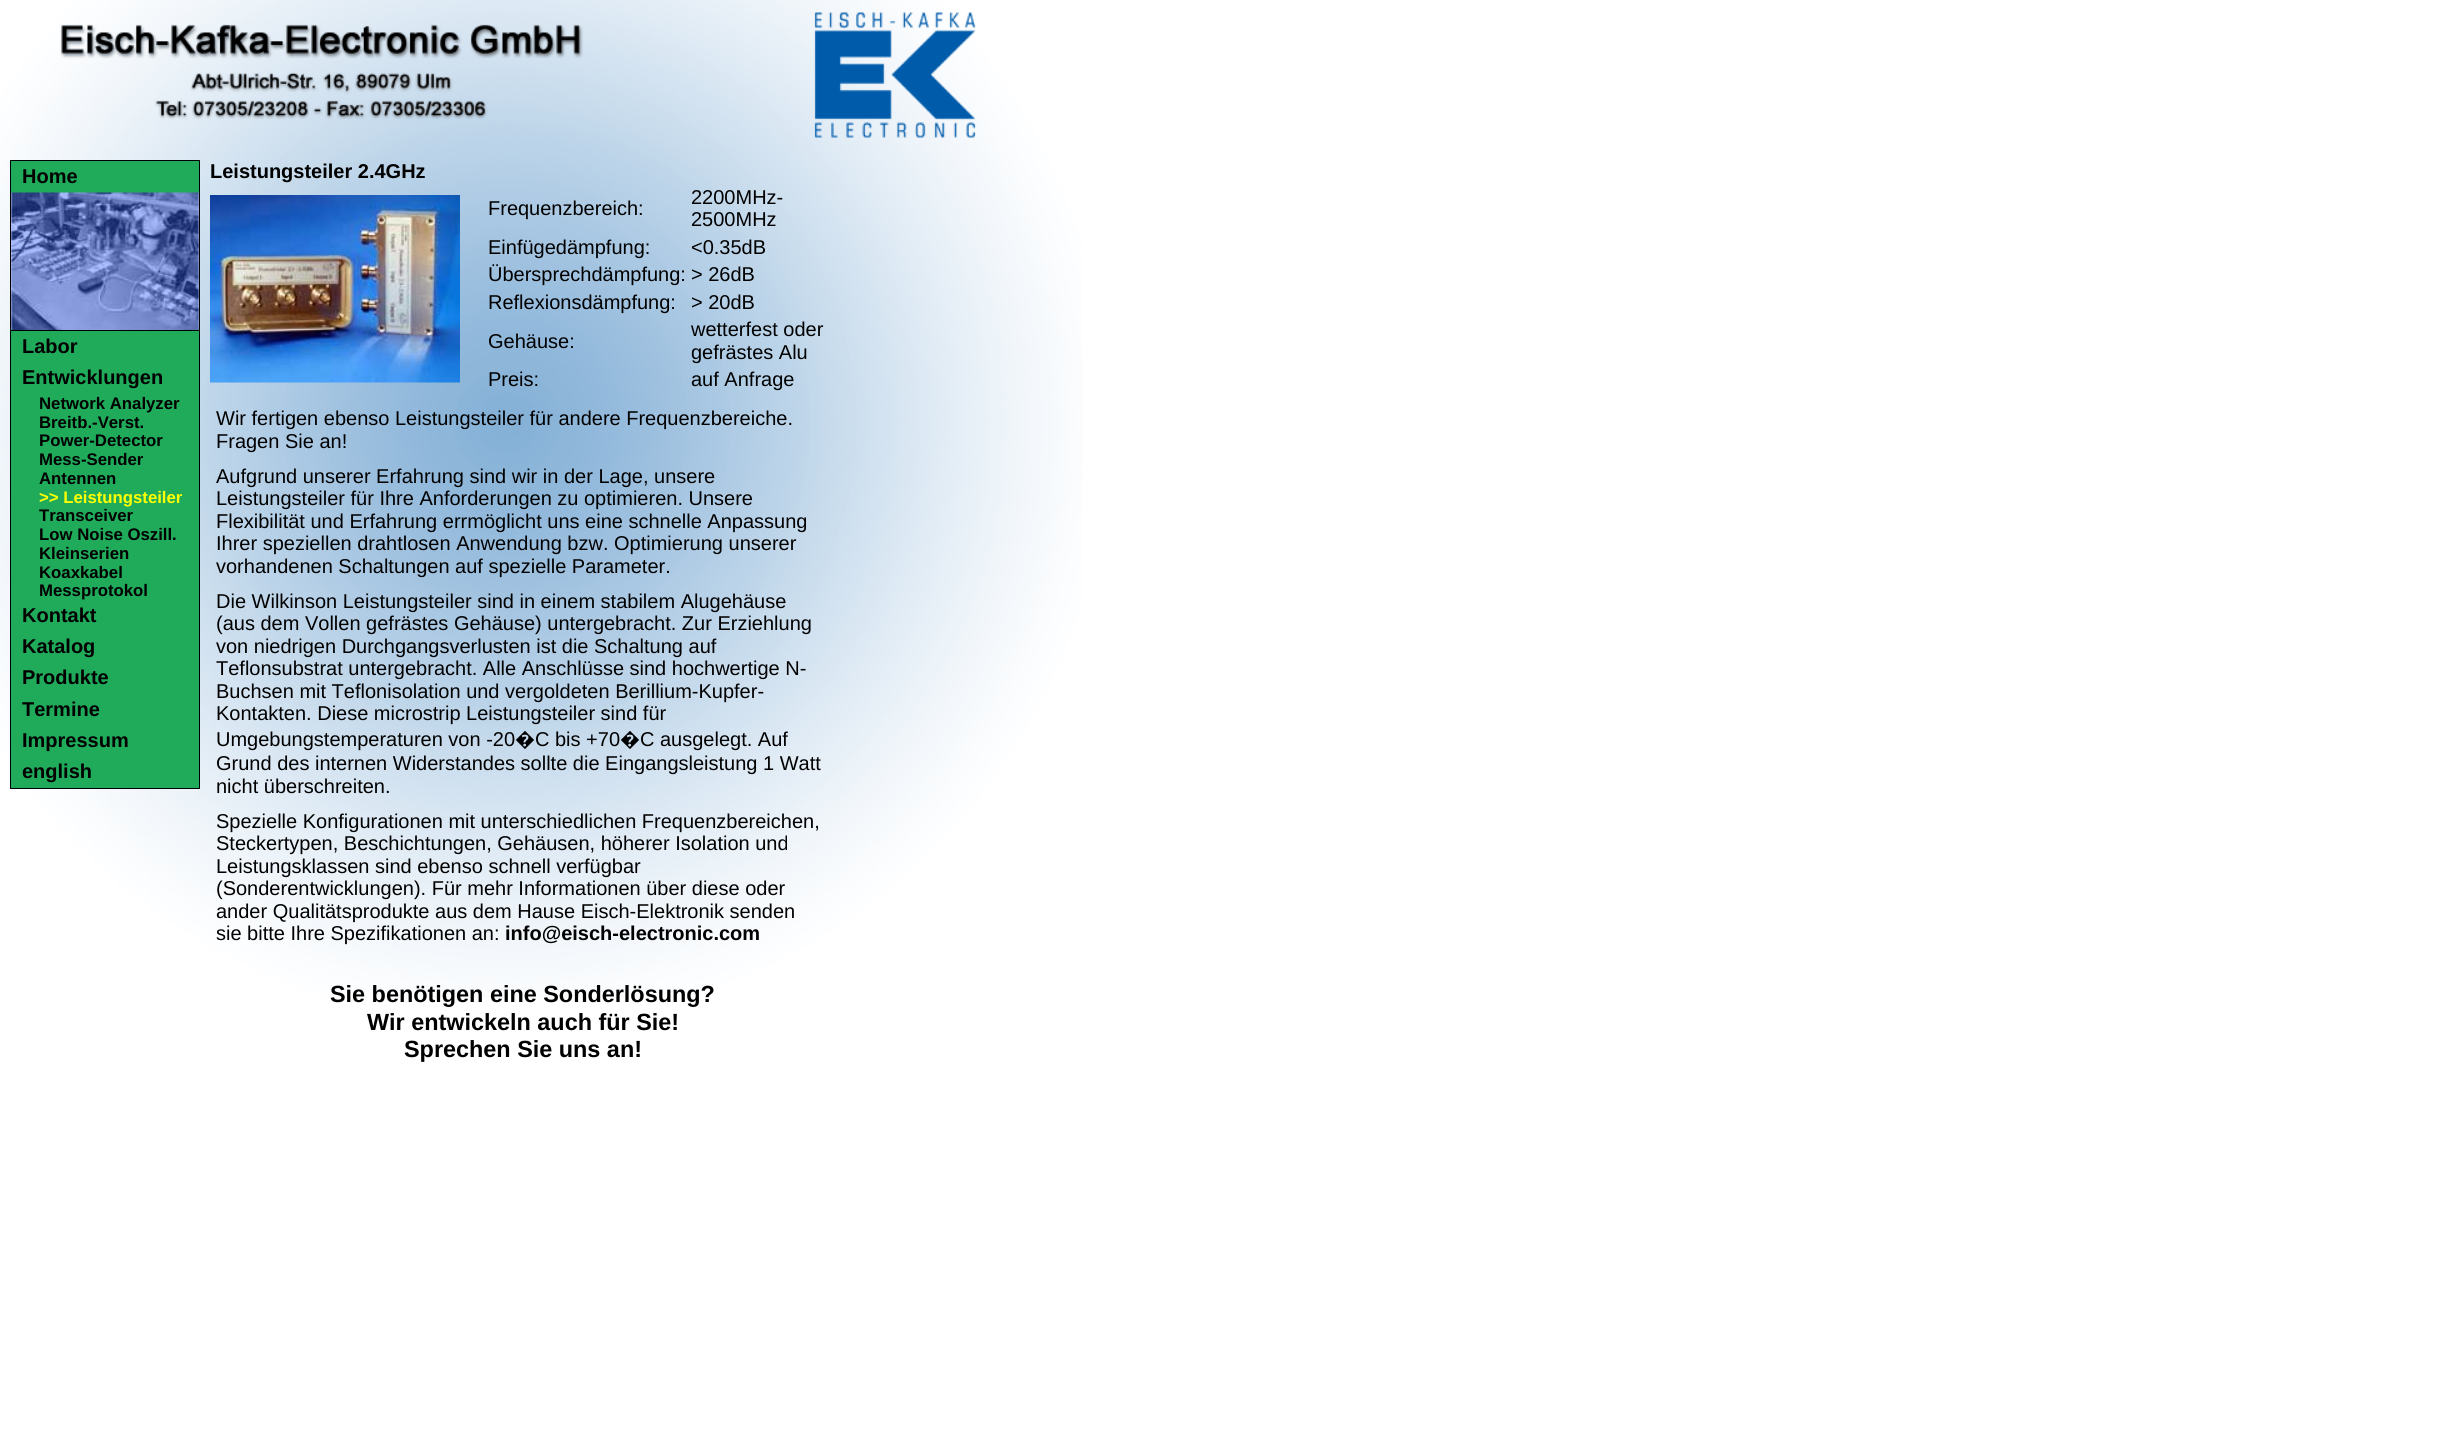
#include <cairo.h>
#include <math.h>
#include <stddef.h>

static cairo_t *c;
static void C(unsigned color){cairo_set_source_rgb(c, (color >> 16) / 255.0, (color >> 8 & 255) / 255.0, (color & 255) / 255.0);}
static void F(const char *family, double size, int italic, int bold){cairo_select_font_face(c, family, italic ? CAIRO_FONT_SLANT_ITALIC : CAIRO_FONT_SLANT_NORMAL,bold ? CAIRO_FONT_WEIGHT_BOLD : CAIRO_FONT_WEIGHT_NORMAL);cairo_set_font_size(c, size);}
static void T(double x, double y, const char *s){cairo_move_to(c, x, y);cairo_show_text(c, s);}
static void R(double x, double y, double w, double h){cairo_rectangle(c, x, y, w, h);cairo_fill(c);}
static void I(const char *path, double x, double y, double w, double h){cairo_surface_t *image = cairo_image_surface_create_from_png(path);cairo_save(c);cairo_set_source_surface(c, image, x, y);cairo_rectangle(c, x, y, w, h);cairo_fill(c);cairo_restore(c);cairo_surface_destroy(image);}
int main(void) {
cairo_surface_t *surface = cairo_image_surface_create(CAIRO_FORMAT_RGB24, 2438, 1438);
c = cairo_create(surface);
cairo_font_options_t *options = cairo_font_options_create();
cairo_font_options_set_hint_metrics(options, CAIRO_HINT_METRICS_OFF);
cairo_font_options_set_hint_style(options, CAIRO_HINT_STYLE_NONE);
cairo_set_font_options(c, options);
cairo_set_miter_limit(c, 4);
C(0xffffff);
cairo_paint(c);
I("1.png",0,0,1082,998);
C(0x000000);
R(10,160,190,1);
R(10,161,1,628);
C(0x20ab5b);
R(11,161,188,32);
F("Liberation Sans",20,0,1);
C(0x000000);
T(22,183,"Home");
R(199,161,1,169);
I("2.png",11,192,188,138);
R(11,330,189,1);
C(0x20ab5b);
R(11,331,188,457);
C(0x000000);
T(22,353,"Labor");
R(199,331,1,457);
T(22,384,"Entwicklungen");
F("Liberation Sans",16.75,0,1);
T(39,409,"Network Analyzer");
T(39,428,"Breitb.-Verst.");
T(39,446,"Power-Detector");
T(39,465,"Mess-Sender");
T(39,484,"Antennen");
C(0xffff00);
T(39,503,">> Leistungsteiler");
C(0x000000);
T(39,521,"Transceiver");
T(39,540,"Low Noise Oszill.");
T(39,559,"Kleinserien");
T(39,578,"Koaxkabel");
T(39,596,"Messprotokol");
F("Liberation Sans",20,0,1);
T(22,622,"Kontakt");
T(22,653,"Katalog");
T(22,684,"Produkte");
T(22,716,"Termine");
T(22,747,"Impressum");
T(22,778,"english");
R(11,788,189,1);
T(210,178,"Leistungsteiler 2.4GHz");
I("3.png",210,195,250,188);
F("Liberation Sans",20,0,0);
T(488,215,"Frequenzbereich:");
T(691,204,"2200MHz-");
T(691,226,"2500MHz");
T(488,254,"Einfügedämpfung:");
T(691,254,"<0.35dB");
T(488,281,"Übersprechdämpfung:");
T(691,281,"> 26dB");
T(488,309,"Reflexionsdämpfung:");
T(691,309,"> 20dB");
T(488,348,"Gehäuse:");
T(691,336,"wetterfest oder");
T(691,359,"gefrästes Alu");
T(488,386,"Preis:");
T(691,386,"auf Anfrage");
T(216,425,"Wir fertigen ebenso Leistungsteiler für andere Frequenzbereiche.");
T(216,448,"Fragen Sie an!");
T(216,483,"Aufgrund unserer Erfahrung sind wir in der Lage, unsere");
T(216,505,"Leistungsteiler für Ihre Anforderungen zu optimieren. Unsere");
T(216,528,"Flexibilität und Erfahrung errmöglicht uns eine schnelle Anpassung");
T(216,550,"Ihrer speziellen drahtlosen Anwendung bzw. Optimierung unserer");
T(216,573,"vorhandenen Schaltungen auf spezielle Parameter.");
T(216,608,"Die Wilkinson Leistungsteiler sind in einem stabilem Alugehäuse");
T(216,630,"(aus dem Vollen gefrästes Gehäuse) untergebracht. Zur Erziehlung");
T(216,653,"von niedrigen Durchgangsverlusten ist die Schaltung auf");
T(216,675,"Teflonsubstrat untergebracht. Alle Anschlüsse sind hochwertige N-");
T(216,698,"Buchsen mit Teflonisolation und vergoldeten Berillium-Kupfer-");
T(216,720,"Kontakten. Diese microstrip Leistungsteiler sind für");
T(216,746,"Umgebungstemperaturen von -20");
F("Noto Sans",20,0,0);
T(515,746,"�");
F("Liberation Sans",20,0,0);
T(535,746,"C bis +70");
F("Noto Sans",20,0,0);
T(620,746,"�");
F("Liberation Sans",20,0,0);
T(640,746,"C ausgelegt. Auf");
T(216,770,"Grund des internen Widerstandes sollte die Eingangsleistung 1 Watt");
T(216,793,"nicht überschreiten.");
T(216,828,"Spezielle Konfigurationen mit unterschiedlichen Frequenzbereichen,");
T(216,850,"Steckertypen, Beschichtungen, Gehäusen, höherer Isolation und");
T(216,873,"Leistungsklassen sind ebenso schnell verfügbar");
T(216,895,"(Sonderentwicklungen). Für mehr Informationen über diese oder");
T(216,918,"ander Qualitätsprodukte aus dem Hause Eisch-Elektronik senden");
T(216,940,"sie bitte Ihre Spezifikationen an:");
F("Liberation Sans",20,0,1);
T(505,940,"info@eisch-electronic.com");
F("Liberation Sans",23.4,0,1);
T(330,1002,"Sie benötigen eine Sonderlösung?");
T(367,1030,"Wir entwickeln auch für Sie!");
T(404,1057,"Sprechen Sie uns an!");
cairo_surface_write_to_png(surface, "o.png");
cairo_font_options_destroy(options);
cairo_destroy(c);
cairo_surface_destroy(surface);
return 0;
}
